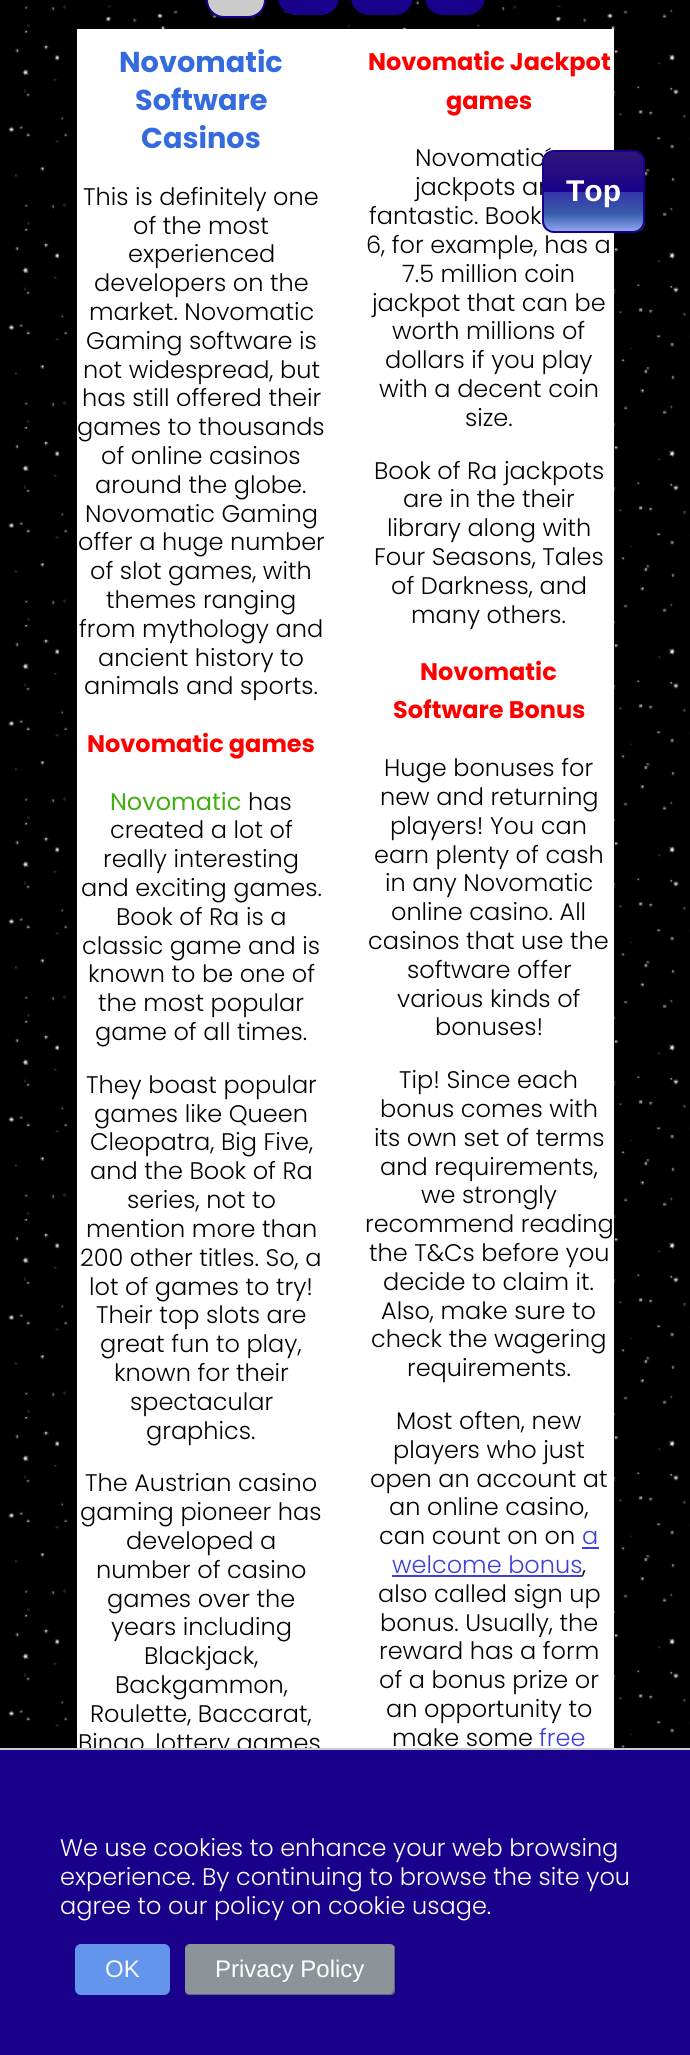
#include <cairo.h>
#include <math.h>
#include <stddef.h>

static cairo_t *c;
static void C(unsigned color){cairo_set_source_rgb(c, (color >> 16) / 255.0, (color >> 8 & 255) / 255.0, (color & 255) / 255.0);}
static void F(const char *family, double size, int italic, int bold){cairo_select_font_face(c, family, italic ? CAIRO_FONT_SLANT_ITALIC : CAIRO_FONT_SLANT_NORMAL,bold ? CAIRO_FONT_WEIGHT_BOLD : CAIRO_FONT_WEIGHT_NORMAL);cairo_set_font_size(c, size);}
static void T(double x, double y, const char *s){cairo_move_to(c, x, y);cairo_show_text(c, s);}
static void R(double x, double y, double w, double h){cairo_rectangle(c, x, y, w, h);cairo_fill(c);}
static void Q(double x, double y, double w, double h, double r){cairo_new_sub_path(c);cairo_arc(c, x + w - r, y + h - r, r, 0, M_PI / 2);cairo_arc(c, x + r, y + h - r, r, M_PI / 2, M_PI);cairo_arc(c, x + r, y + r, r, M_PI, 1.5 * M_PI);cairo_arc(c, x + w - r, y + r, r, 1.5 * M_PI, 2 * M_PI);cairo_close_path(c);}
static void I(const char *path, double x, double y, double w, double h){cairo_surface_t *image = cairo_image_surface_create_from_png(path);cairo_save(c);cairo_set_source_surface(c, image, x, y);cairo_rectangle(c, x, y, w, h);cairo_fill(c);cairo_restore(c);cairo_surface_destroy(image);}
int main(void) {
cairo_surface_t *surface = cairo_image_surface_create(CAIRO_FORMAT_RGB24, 690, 2055);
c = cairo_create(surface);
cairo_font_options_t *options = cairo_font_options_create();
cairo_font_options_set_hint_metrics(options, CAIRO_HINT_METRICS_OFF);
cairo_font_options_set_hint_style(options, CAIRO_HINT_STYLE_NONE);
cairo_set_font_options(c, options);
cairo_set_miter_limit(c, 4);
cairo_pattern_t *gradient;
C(0xffffff);
cairo_paint(c);
I("1.png",0,0,690,1748);
C(0xcccccc);
Q(207,-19,58,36,17);
cairo_fill_preserve(c);
C(0x1a018b);
cairo_stroke(c);
Q(278,-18,61,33,18);
cairo_fill(c);
Q(351,-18,62,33,18);
cairo_fill(c);
Q(425,-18,60,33,18);
cairo_fill(c);
C(0xffffff);
R(77,29,537,1719);
F("Poppins",28.75,0,1);
C(0x356bdd);
T(119,72,"Novomatic");
T(135,110,"Software");
T(141,148,"Casinos");
F("Poppins",24,0,1);
C(0xff0000);
T(368,70,"Novomatic Jackpot");
T(446,109,"games");
F("Poppins Light",24,0,0);
C(0x000000);
T(83,205,"This is definitely one");
T(133,234,"of the most");
T(128,262,"experienced");
T(94,291,"developers on the");
T(89,320,"market. Novomatic");
T(86,349,"Gaming software is");
T(83,378,"not widespread, but");
T(82,406,"has still offered their");
T(77,435,"games to thousands");
T(101,464,"of online casinos");
T(95,493,"around the globe.");
T(85,522,"Novomatic Gaming");
T(78,550,"offer a huge number");
T(90,579,"of slot games, with");
T(106,608,"themes ranging");
T(79,637,"from mythology and");
T(98,666,"ancient history to");
T(84,694,"animals and sports.");
T(415,166,"Novomatic´");
T(415,195,"jackpots ar");
T(369,224,"fantastic. Book");
T(366,253,"6, for example, has a");
T(402,282,"7.5 million coin");
T(372,311,"jackpot that can be");
T(392,339,"worth millions of");
T(385,368,"dollars if you play");
T(379,397,"with a decent coin");
T(465,426,"size.");
T(374,479,"Book of Ra jackpots");
T(403,507,"are in the their");
T(387,536,"library along with");
T(374,565,"Four Seasons, Tales");
T(391,594,"of Darkness, and");
T(411,623,"many others.");
F("Poppins",24,0,1);
C(0xff0000);
T(420,680,"Novomatic");
T(393,718,"Software Bonus");
T(87,752,"Novomatic games");
F("Poppins",24,0,0);
C(0x42af11);
T(110,810,"Novomatic");
F("Poppins Light",24,0,0);
C(0x000000);
T(248,810,"has");
T(110,838,"created a lot of");
T(103,867,"really interesting");
T(81,896,"and exciting games.");
T(116,925,"Book of Ra is a");
T(82,954,"classic game and is");
T(88,982,"known to be one of");
T(98,1011,"the most popular");
T(95,1040,"game of all times.");
T(384,776,"Huge bonuses for");
T(380,805,"new and returning");
T(390,834,"players! You can");
T(374,863,"earn plenty of cash");
T(385,891,"in any Novomatic");
T(391,920,"online casino. All");
T(368,949,"casinos that use the");
T(407,978,"software offer");
T(397,1007,"various kinds of");
T(435,1035,"bonuses!");
T(86,1093,"They boast popular");
T(94,1122,"games like Queen");
T(90,1150,"Cleopatra, Big Five,");
T(90,1179,"and the Book of Ra");
T(127,1208,"series, not to");
T(86,1237,"mention more than");
T(80,1266,"200 other titles. So, a");
T(89,1295,"lot of games to try!");
T(96,1323,"Their top slots are");
T(100,1352,"great fun to play,");
T(114,1381,"known for their");
T(130,1410,"spectacular");
T(146,1439,"graphics.");
T(399,1088,"Tip! Since each");
T(380,1117,"bonus comes with");
T(374,1146,"its own set of terms");
T(380,1175,"and requirements,");
T(421,1203,"we strongly");
T(365,1232,"recommend reading");
T(369,1261,"the T&Cs before you");
T(383,1290,"decide to claim it.");
T(381,1319,"Also, make sure to");
T(371,1347,"check the wagering");
T(407,1376,"requirements.");
T(85,1491,"The Austrian casino");
T(80,1520,"gaming pioneer has");
T(126,1549,"developed a");
T(96,1578,"number of casino");
T(107,1607,"games over the");
T(111,1635,"years including");
T(144,1664,"Blackjack,");
T(115,1693,"Backgammon,");
T(90,1722,"Roulette, Baccarat,");
T(78,1751,"Bingo, lottery games");
T(396,1429,"Most often, new");
T(393,1458,"players who just");
T(370,1487,"open an account at");
T(389,1515,"an online casino,");
T(379,1544,"can count on on");
C(0x3c3fda);
T(582,1544,"a");
R(582,1547,17,2);
T(392,1573,"welcome bonus");
R(392,1575,190,2);
C(0x000000);
T(582,1573,",");
T(378,1602,"also called sign up");
T(380,1631,"bonus. Usually, the");
T(379,1659,"reward has a form");
T(379,1688,"of a bonus prize or");
T(386,1717,"an opportunity to");
T(392,1746,"make some");
C(0x3c3fda);
T(539,1746,"free");
cairo_save(c);
Q(542,150,103,83,12);
cairo_clip(c);
gradient = cairo_pattern_create_linear(593,152,593,231);
cairo_pattern_add_color_stop_rgba(gradient,0,0.188,0.086,0.475,1);
cairo_pattern_add_color_stop_rgba(gradient,.5,0.102,0.004,0.545,1);
cairo_pattern_add_color_stop_rgba(gradient,.51,0.204,0.212,0.667,1);
cairo_pattern_add_color_stop_rgba(gradient,.78,0.216,0.361,0.667,1);
cairo_pattern_add_color_stop_rgba(gradient,1,0.557,0.647,0.945,1);
cairo_set_source(c,gradient);
cairo_pattern_destroy(gradient);
R(542,152,103,79);
cairo_restore(c);
Q(543,151,101,81,11);
C(0x1a018b);
cairo_stroke(c);
F("Liberation Sans",30,0,1);
C(0xffffff);
T(566,201,"Top");
C(0x1a018b);
R(0,1750,690,305);
C(0xcccccc);
R(0,1748,690,2);
F("Poppins Light",24,0,0);
C(0xffffff);
T(60,1856,"We use cookies to enhance your web browsing");
T(60,1885,"experience. By continuing to browse the site you");
T(60,1914,"agree to our policy on cookie usage.");
C(0x6495ed);
Q(75,1944,95,51,6);
cairo_fill(c);
F("Liberation Sans",24,0,0);
C(0xf8f8f8);
T(105,1977,"OK");
C(0x8d9499);
Q(185,1944,210,51,5);
cairo_fill(c);
C(0x63666b);
cairo_new_path(c);
cairo_move_to(c,185,1992);
cairo_curve_to(c,186,1994,188,1995,190,1995);
cairo_line_to(c,390,1995);
cairo_curve_to(c,393,1995,395,1993,395,1990);
cairo_line_to(c,395,1949);
cairo_curve_to(c,395,1948,395,1947,394,1946);
cairo_line_to(c,394,1989);
cairo_curve_to(c,394,1991,392,1994,390,1994);
cairo_line_to(c,189,1994);
cairo_curve_to(c,188,1994,186,1993,185,1992);
cairo_close_path(c);
cairo_fill(c);
C(0xffffff);
T(215,1977,"Privacy Policy");
cairo_surface_write_to_png(surface, "o.png");
cairo_font_options_destroy(options);
cairo_destroy(c);
cairo_surface_destroy(surface);
return 0;
}
